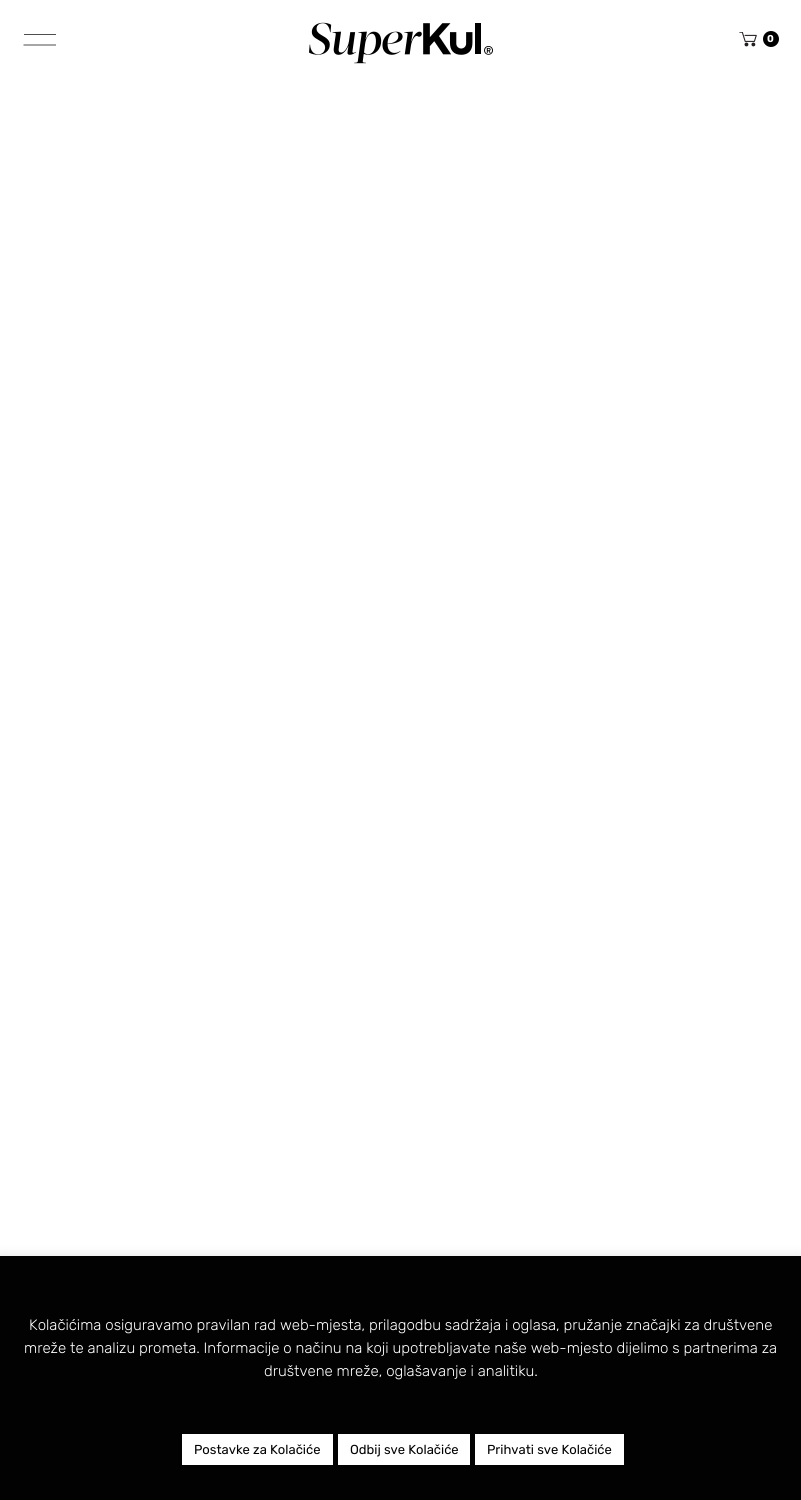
#include <cairo.h>
#include <math.h>
#include <stddef.h>

static cairo_t *c;
static void C(unsigned color){cairo_set_source_rgb(c, (color >> 16) / 255.0, (color >> 8 & 255) / 255.0, (color & 255) / 255.0);}
static void F(const char *family, double size, int italic, int bold){cairo_select_font_face(c, family, italic ? CAIRO_FONT_SLANT_ITALIC : CAIRO_FONT_SLANT_NORMAL,bold ? CAIRO_FONT_WEIGHT_BOLD : CAIRO_FONT_WEIGHT_NORMAL);cairo_set_font_size(c, size);}
static void T(double x, double y, const char *s){cairo_move_to(c, x, y);cairo_show_text(c, s);}
static void R(double x, double y, double w, double h){cairo_rectangle(c, x, y, w, h);cairo_fill(c);}
static void Q(double x, double y, double w, double h, double r){cairo_new_sub_path(c);cairo_arc(c, x + w - r, y + h - r, r, 0, M_PI / 2);cairo_arc(c, x + r, y + h - r, r, M_PI / 2, M_PI);cairo_arc(c, x + r, y + r, r, M_PI, 1.5 * M_PI);cairo_arc(c, x + w - r, y + r, r, 1.5 * M_PI, 2 * M_PI);cairo_close_path(c);}
static void S(double x, double y, double w, double h, double r, double blur, double alpha){cairo_push_group_with_content(c, CAIRO_CONTENT_ALPHA);cairo_set_operator(c, CAIRO_OPERATOR_SOURCE);for (int i = 15; i >= -15 && fmin(w, h) + blur * i / 3 > 0; i -= 2) {double e = blur * i / 6;cairo_set_source_rgba(c, 0, 0, 0, alpha * erfc((i - 1) / 8.5) / 2);Q(x - e, y - e, w + 2 * e, h + 2 * e, fmax(0, fmin(r + e + blur * .6, fmin(w, h) / 2 + e)));cairo_fill(c);}cairo_pattern_t *soft = cairo_pop_group(c);cairo_mask(c, soft);cairo_pattern_destroy(soft);}
static void I(const char *path, double x, double y, double w, double h){cairo_surface_t *image = cairo_image_surface_create_from_png(path);cairo_save(c);cairo_set_source_surface(c, image, x, y);cairo_rectangle(c, x, y, w, h);cairo_fill(c);cairo_restore(c);cairo_surface_destroy(image);}
int main(void) {
cairo_surface_t *surface = cairo_image_surface_create(CAIRO_FORMAT_RGB24, 801, 1500);
c = cairo_create(surface);
cairo_font_options_t *options = cairo_font_options_create();
cairo_font_options_set_hint_metrics(options, CAIRO_HINT_METRICS_OFF);
cairo_font_options_set_hint_style(options, CAIRO_HINT_STYLE_NONE);
cairo_set_font_options(c, options);
cairo_set_miter_limit(c, 4);
C(0xffffff);
cairo_paint(c);
C(0x4f4f4f);
R(24,34,32,1);
cairo_new_path(c);
cairo_move_to(c,23.5,45);
cairo_line_to(c,56,45);
C(0x030404);
cairo_set_line_width(c,.7);
cairo_stroke(c);
I("1.png",309,22,184,42);
I("2.png",739,32,18,15);
C(0x000000);
cairo_arc(c,771,39,8,0,2 * M_PI);
cairo_fill(c);
F("Rubik",10,0,1);
C(0xffffff);
T(767,42,"0");
C(0xacabab);
S(0,1255,801,244,0,5,.3);
C(0x020202);
R(0,1256,801,244);
F("Rubik Light",15,0,0);
C(0xffffff);
T(29,1330,"Kolačićima osiguravamo pravilan rad web-mjesta, prilagodbu sadržaja i oglasa, pružanje značajki za društvene");
T(24,1353,"mreže te analizu prometa. Informacije o načinu na koji upotrebljavate naše web-mjesto dijelimo s partnerima za");
T(264,1376,"društvene mreže, oglašavanje i analitiku.");
R(182,1434,151,31);
F("Rubik",13,0,0);
C(0x020202);
T(194,1454,"Postavke za Kolačiće");
C(0xffffff);
R(338,1434,132,31);
C(0x020202);
T(350,1454,"Odbij sve Kolačiće");
C(0xffffff);
R(475,1434,149,31);
C(0x020202);
T(487,1454,"Prihvati sve Kolačiće");
cairo_surface_write_to_png(surface, "o.png");
cairo_font_options_destroy(options);
cairo_destroy(c);
cairo_surface_destroy(surface);
return 0;
}
